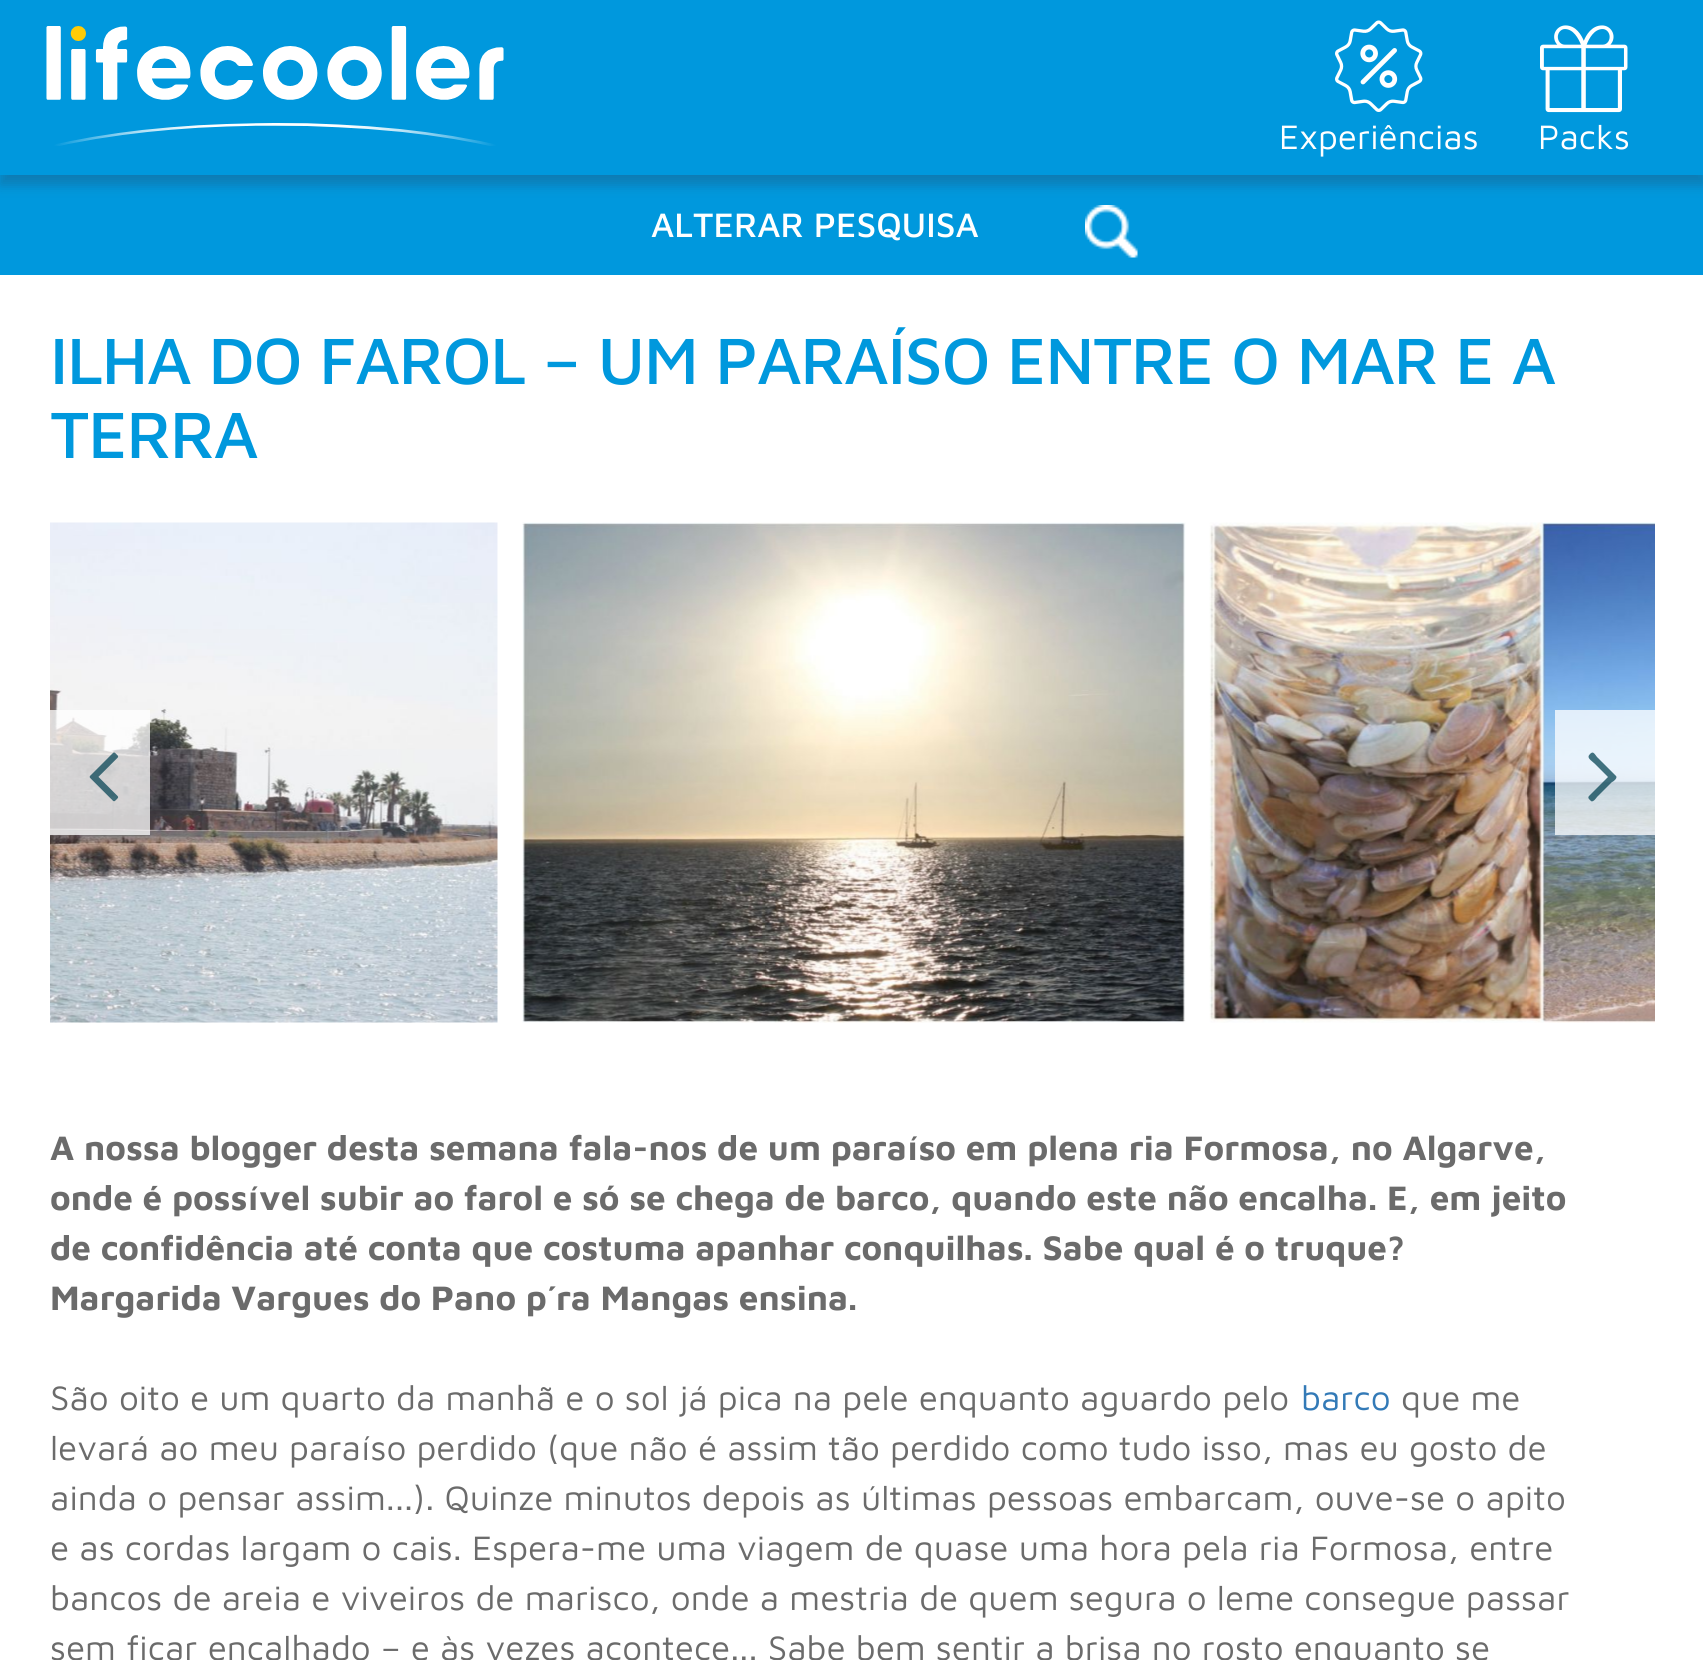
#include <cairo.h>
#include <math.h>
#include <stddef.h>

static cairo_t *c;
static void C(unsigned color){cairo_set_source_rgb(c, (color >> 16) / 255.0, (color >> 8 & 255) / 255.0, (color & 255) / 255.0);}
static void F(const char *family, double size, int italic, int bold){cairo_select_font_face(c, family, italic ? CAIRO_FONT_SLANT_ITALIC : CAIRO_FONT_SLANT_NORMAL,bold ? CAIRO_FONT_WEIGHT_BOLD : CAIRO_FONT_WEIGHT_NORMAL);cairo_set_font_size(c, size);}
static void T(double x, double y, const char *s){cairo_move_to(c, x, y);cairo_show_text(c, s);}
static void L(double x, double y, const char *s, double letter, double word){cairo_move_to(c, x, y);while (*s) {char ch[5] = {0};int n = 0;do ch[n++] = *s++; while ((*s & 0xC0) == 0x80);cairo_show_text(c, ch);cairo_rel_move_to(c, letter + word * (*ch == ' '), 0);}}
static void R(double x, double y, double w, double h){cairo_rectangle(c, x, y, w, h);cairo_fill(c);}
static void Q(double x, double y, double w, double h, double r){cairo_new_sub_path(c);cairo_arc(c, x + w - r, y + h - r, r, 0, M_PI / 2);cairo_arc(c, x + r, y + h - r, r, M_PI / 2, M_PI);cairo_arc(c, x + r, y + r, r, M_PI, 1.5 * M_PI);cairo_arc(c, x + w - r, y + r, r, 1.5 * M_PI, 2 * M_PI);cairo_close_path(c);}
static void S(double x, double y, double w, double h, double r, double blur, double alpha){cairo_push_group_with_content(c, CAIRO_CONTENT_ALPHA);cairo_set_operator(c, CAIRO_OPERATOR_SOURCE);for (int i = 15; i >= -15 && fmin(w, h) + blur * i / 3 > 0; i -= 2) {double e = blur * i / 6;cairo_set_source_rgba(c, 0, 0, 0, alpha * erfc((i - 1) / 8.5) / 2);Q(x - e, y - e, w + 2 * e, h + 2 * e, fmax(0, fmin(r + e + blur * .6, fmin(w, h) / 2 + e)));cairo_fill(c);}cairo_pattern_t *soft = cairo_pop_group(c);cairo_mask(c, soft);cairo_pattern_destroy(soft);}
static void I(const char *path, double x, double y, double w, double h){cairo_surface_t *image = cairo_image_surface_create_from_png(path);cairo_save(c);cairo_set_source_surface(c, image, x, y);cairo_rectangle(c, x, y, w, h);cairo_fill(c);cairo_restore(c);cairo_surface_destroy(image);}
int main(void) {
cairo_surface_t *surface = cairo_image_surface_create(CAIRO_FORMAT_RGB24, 1703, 1660);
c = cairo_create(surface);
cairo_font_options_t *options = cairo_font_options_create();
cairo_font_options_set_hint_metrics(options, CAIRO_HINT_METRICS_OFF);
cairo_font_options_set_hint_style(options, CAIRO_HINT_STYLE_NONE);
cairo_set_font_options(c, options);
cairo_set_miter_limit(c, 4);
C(0xffffff);
cairo_paint(c);
C(0x0098dd);
R(0,175,1703,100);
C(0x2c3850);
S(0,10,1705,175,0,6,.3);
C(0x0098dd);
R(0,0,1703,175);
I("1.png",46,26,458,120);
I("2.png",1335,20,88,92);
F("Maven Pro",35,0,0);
C(0xffffff);
T(1279,149,"Experiências");
I("3.png",1540,25,88,88);
T(1538,149,"Packs");
F("Maven Pro Medium",35,0,0);
T(651,237,"ALTERAR PESQUISA");
I("4.png",1085,205,53,53);
F("Maven Pro Medium",67.5,0,0);
C(0x0098dd);
L(50,384,"ILHA DO FAROL – UM PARAÍSO ENTRE O MAR E A",-1.25,0);
L(50,458,"TERRA",-1.25,0);
I("5.png",50,522,448,501);
I("6.png",522,522,664,501);
I("7.png",1209,522,446,501);
cairo_set_source_rgba(c,1,1,1,0.75);
R(50,710,100,125);
I("8.png",89,752,30,50);
R(1555,710,100,125);
cairo_set_source_rgba(c,0.035,0.271,0.337,0.75);
cairo_new_path(c);
cairo_move_to(c,1616,776);
cairo_curve_to(c,1618,778,1613,782,1612,782);
cairo_line_to(c,1597,797);
cairo_curve_to(c,1597,797,1593,803,1591,801);
cairo_curve_to(c,1590,800,1587,798,1589,796);
cairo_line_to(c,1608,777);
cairo_line_to(c,1595,764);
cairo_curve_to(c,1591,760,1586,758,1590,754);
cairo_curve_to(c,1593,751,1594,753,1597,757);
cairo_close_path(c);
cairo_fill(c);
F("Maven Pro",35,0,1);
C(0x6b6b6b);
L(50,1160,"A nossa blogger desta semana fala-nos de um paraíso em plena ria Formosa, no Algarve,",0,.1);
T(50,1210,"onde é possível subir ao farol e só se chega de barco, quando este não encalha. E, em jeito");
L(50,1260,"de confidência até conta que costuma apanhar conquilhas. Sabe qual é o truque?",0,.1);
T(50,1310,"Margarida Vargues do Pano p´ra Mangas ensina.");
F("Maven Pro",35,0,0);
T(50,1410,"São oito e um quarto da manhã e o sol já pica na pele enquanto aguardo pelo");
C(0x337ab7);
T(1301,1410,"barco");
C(0x6b6b6b);
T(1401,1410,"que me");
T(50,1460,"levará ao meu paraíso perdido (que não é assim tão perdido como tudo isso, mas eu gosto de");
L(50,1510,"ainda o pensar assim...). Quinze minutos depois as últimas pessoas embarcam, ouve-se o apito",0,.1);
T(50,1560,"e as cordas largam o cais. Espera-me uma viagem de quase uma hora pela ria Formosa, entre");
T(50,1610,"bancos de areia e viveiros de marisco, onde a mestria de quem segura o leme consegue passar");
T(50,1660,"sem ficar encalhado – e às vezes acontece... Sabe bem sentir a brisa no rosto enquanto se");
cairo_surface_write_to_png(surface, "o.png");
cairo_font_options_destroy(options);
cairo_destroy(c);
cairo_surface_destroy(surface);
return 0;
}
